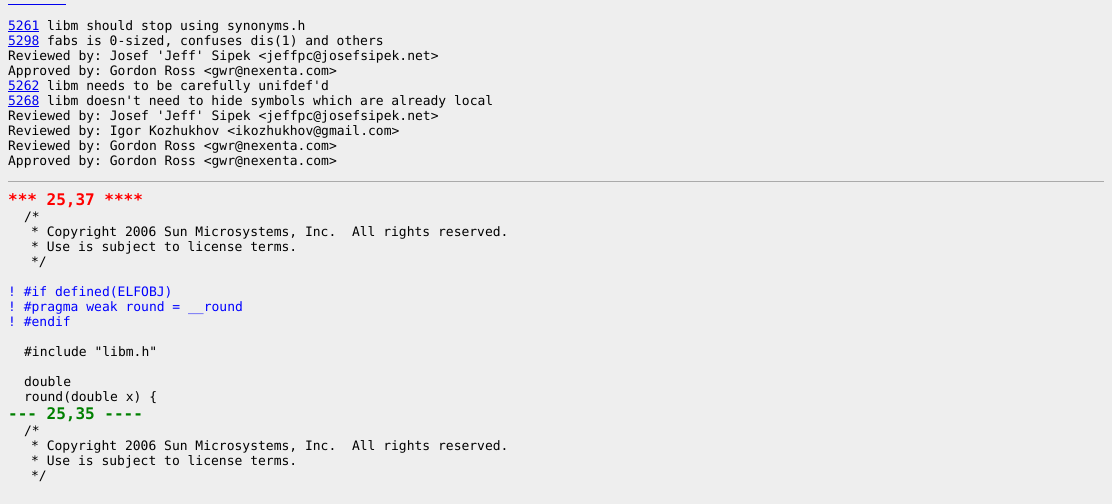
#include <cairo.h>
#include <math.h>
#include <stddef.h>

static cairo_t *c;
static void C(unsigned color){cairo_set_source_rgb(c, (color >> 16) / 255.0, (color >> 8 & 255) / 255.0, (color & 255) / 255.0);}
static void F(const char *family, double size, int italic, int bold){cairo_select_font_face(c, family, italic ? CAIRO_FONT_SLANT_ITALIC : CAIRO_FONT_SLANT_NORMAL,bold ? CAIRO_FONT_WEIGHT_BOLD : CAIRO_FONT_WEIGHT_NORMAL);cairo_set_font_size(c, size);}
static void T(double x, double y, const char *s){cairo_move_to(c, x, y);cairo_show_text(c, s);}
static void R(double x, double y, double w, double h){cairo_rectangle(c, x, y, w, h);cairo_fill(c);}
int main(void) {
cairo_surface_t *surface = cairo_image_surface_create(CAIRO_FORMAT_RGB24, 1112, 504);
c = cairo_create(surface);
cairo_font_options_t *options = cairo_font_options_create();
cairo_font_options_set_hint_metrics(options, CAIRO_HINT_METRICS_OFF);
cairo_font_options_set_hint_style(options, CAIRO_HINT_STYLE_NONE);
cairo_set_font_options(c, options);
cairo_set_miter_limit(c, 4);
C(0xeeeeee);
cairo_paint(c);
C(0x0000ee);
R(8,4,58,1);
F("DejaVu Sans Mono",13,0,0);
T(8,30,"5261");
R(8,31,31,1);
C(0x000000);
T(47,30,"libm should stop using synonyms.h");
C(0x0000ee);
T(8,45,"5298");
R(8,46,31,1);
C(0x000000);
T(47,45,"fabs is 0-sized, confuses dis(1) and others");
T(8,60,"Reviewed by: Josef 'Jeff' Sipek <jeffpc@josefsipek.net>");
T(8,75,"Approved by: Gordon Ross <gwr@nexenta.com>");
C(0x0000ee);
T(8,90,"5262");
R(8,91,31,1);
C(0x000000);
T(47,90,"libm needs to be carefully unifdef'd");
C(0x0000ee);
T(8,105,"5268");
R(8,106,31,1);
C(0x000000);
T(47,105,"libm doesn't need to hide symbols which are already local");
T(8,120,"Reviewed by: Josef 'Jeff' Sipek <jeffpc@josefsipek.net>");
T(8,135,"Reviewed by: Igor Kozhukhov <ikozhukhov@gmail.com>");
T(8,150,"Reviewed by: Gordon Ross <gwr@nexenta.com>");
T(8,165,"Approved by: Gordon Ross <gwr@nexenta.com>");
C(0xaaaaaa);
R(8,181,1096,1);
F("DejaVu Sans Mono",16,0,1);
C(0xff0000);
T(8,205,"*** 25,37 ****");
F("DejaVu Sans Mono",13,0,0);
C(0x000000);
T(24,221,"/*");
T(31,236,"* Copyright 2006 Sun Microsystems, Inc.  All rights reserved.");
T(31,251,"* Use is subject to license terms.");
T(31,266,"*/");
C(0x0000ff);
T(8,296,"! #if defined(ELFOBJ)");
T(8,311,"! #pragma weak round = __round");
T(8,326,"! #endif");
C(0x000000);
T(24,356,"#include \"libm.h\"");
T(24,386,"double");
T(24,401,"round(double x) {");
F("DejaVu Sans Mono",16,0,1);
C(0x008000);
T(8,419,"--- 25,35 ----");
F("DejaVu Sans Mono",13,0,0);
C(0x000000);
T(24,435,"/*");
T(31,450,"* Copyright 2006 Sun Microsystems, Inc.  All rights reserved.");
T(31,465,"* Use is subject to license terms.");
T(31,480,"*/");
cairo_surface_write_to_png(surface, "o.png");
cairo_font_options_destroy(options);
cairo_destroy(c);
cairo_surface_destroy(surface);
return 0;
}
